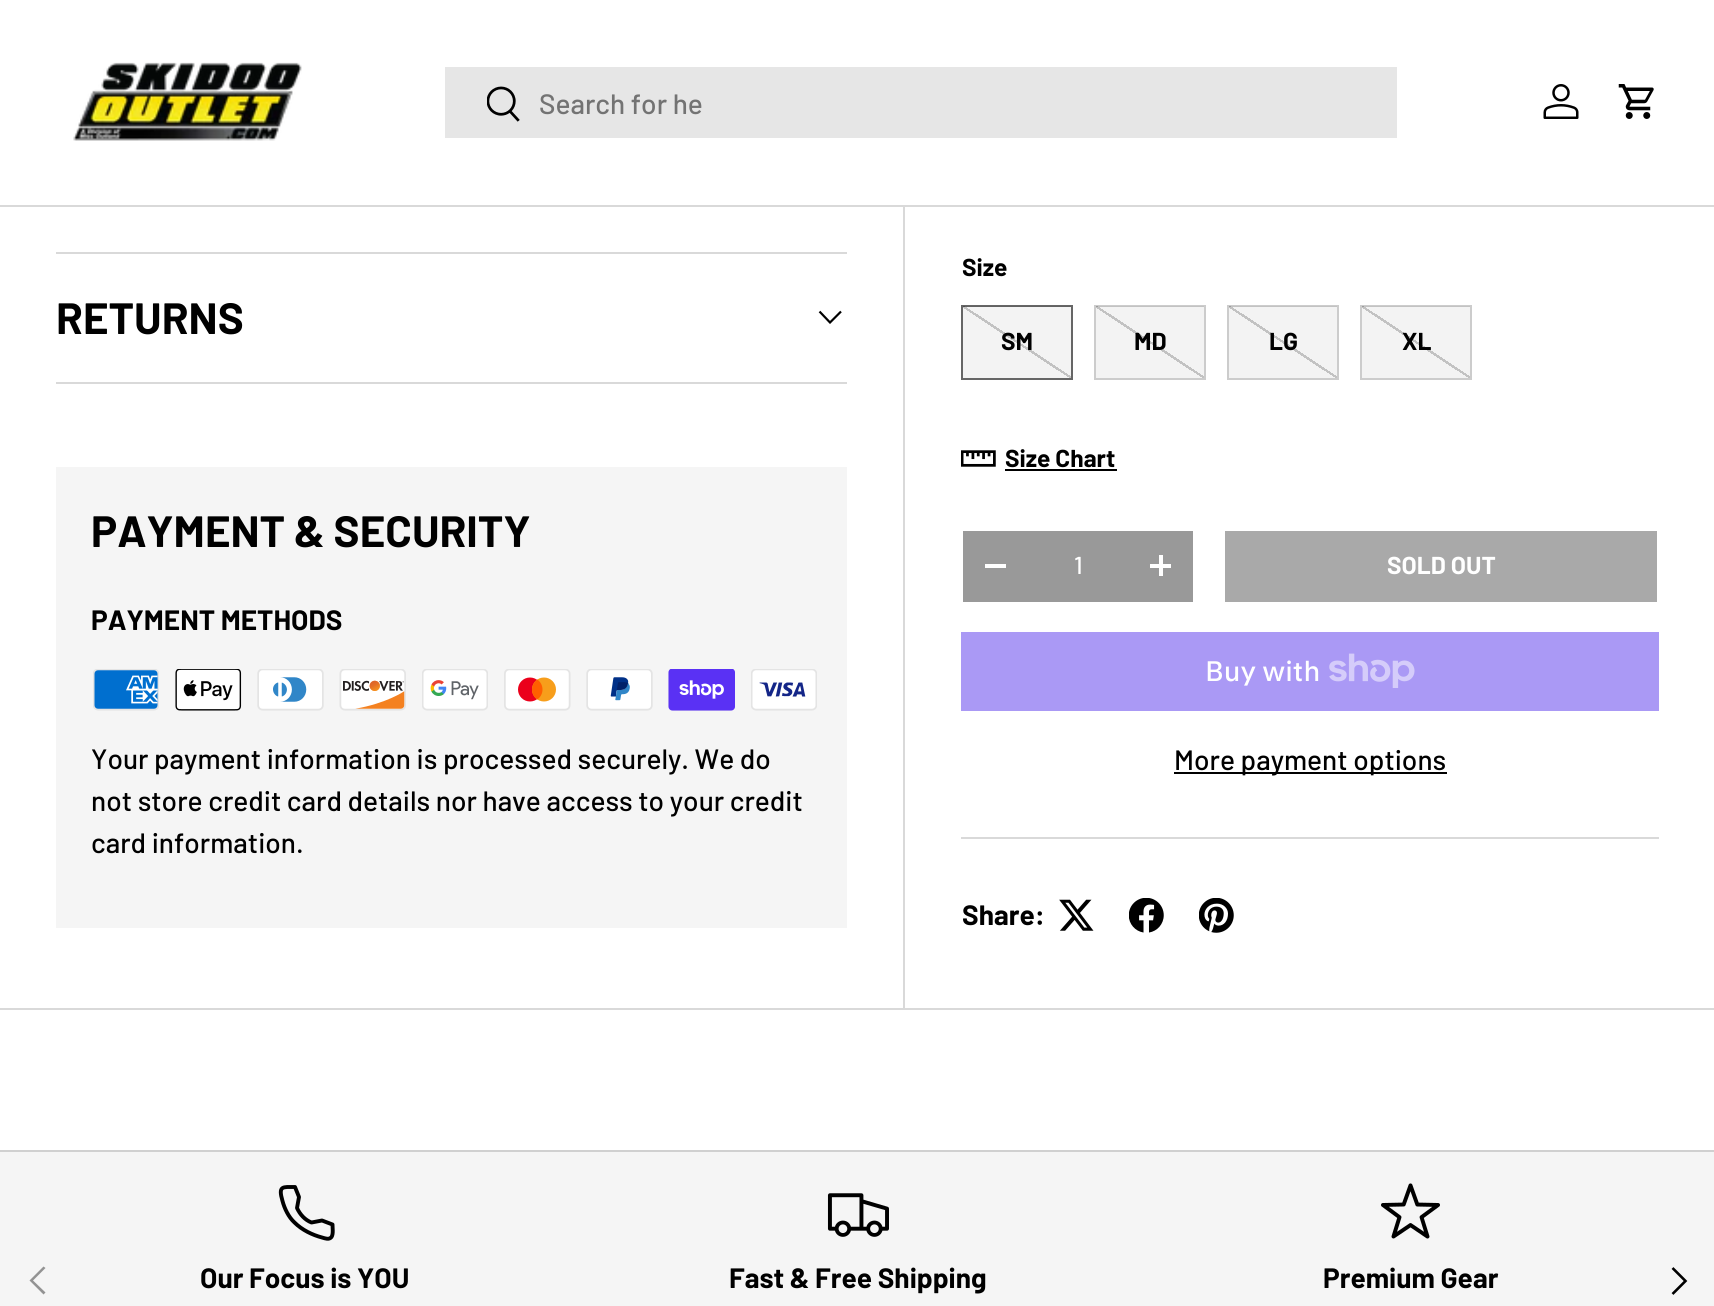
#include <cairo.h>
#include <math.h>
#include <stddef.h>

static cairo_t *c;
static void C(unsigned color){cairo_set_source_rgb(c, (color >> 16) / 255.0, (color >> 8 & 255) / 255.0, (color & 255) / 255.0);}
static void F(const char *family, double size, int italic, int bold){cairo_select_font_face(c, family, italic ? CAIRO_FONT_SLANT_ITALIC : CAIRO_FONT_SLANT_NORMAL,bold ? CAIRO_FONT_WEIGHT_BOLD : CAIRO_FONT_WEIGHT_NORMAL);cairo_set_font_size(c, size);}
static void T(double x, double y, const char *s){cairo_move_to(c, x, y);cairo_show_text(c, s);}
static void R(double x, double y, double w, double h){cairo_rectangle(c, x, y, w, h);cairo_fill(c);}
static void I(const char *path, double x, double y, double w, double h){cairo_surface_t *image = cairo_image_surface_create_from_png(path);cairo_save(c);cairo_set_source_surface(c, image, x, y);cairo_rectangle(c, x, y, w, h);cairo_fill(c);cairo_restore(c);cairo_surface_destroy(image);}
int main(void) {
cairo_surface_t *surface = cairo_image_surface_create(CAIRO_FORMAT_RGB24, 1714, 1306);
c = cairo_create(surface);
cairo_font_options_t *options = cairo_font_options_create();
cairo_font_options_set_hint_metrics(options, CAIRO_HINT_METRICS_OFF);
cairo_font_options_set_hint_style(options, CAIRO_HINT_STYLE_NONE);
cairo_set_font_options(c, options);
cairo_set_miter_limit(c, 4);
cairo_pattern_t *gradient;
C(0xffffff);
cairo_paint(c);
C(0xd9d9d9);
R(0,205,1714,2);
I("1.png",73,62,229,79);
C(0xe6e6e6);
R(445,67,952,71);
I("2.png",487,86,33,36);
F("Barlow Medium",28,0,0);
C(0x737373);
T(539,114,"Search for he");
I("3.png",1543,84,36,35);
I("4.png",1618,84,36,35);
C(0xd9d9d9);
R(56,252,791,2);
R(56,382,791,2);
F("Barlow",43.8,0,1);
C(0x000000);
T(56,334,"RETURNS");
cairo_new_path(c);
cairo_move_to(c,841,311.5);
cairo_line_to(c,830,322.5);
cairo_line_to(c,819.5,311.5);
cairo_set_line_width(c,2.2);
cairo_stroke(c);
C(0xf5f5f5);
R(56,467,791,461);
C(0x000000);
T(91,547,"PAYMENT & SECURITY");
F("Barlow",28,0,1);
T(91,630,"PAYMENT METHODS");
I("5.png",93,669,66,42);
I("6.png",175,669,67,42);
I("7.png",257,669,67,42);
I("8.png",339,669,67,42);
I("9.png",422,669,66,42);
I("10.png",504,669,67,42);
I("11.png",586,669,67,42);
I("12.png",668,669,67,42);
I("13.png",751,669,66,42);
F("Barlow Medium",28,0,0);
T(91,769,"Your payment information is processed securely. We do");
T(91,811,"not store credit card details nor have access to your credit");
T(91,853,"card information.");
C(0xd9d9d9);
R(0,1008,1714,2);
R(903,207,2,803);
F("Barlow",24.5,0,1);
C(0x000000);
T(962,276,"Size");
gradient = cairo_pattern_create_linear(1050,292,984,392);
cairo_pattern_add_color_stop_rgba(gradient,.49,1,1,1,1);
cairo_pattern_add_color_stop_rgba(gradient,.49,0.8,0.8,0.8,1);
cairo_pattern_add_color_stop_rgba(gradient,.51,0.8,0.8,0.8,1);
cairo_pattern_add_color_stop_rgba(gradient,.51,1,1,1,1);
cairo_set_source(c,gradient);
cairo_pattern_destroy(gradient);
R(963,306,108,72);
cairo_rectangle(c,962,306,110,73);
cairo_set_source_rgba(c,0,0,0,0.6);
cairo_set_line_width(c,2);
cairo_stroke(c);
cairo_set_source_rgba(c,0,0,0,0.05);
R(963,306,108,72);
C(0x000000);
T(1001,350,"SM");
gradient = cairo_pattern_create_linear(1183,292,1117,392);
cairo_pattern_add_color_stop_rgba(gradient,.49,1,1,1,1);
cairo_pattern_add_color_stop_rgba(gradient,.49,0.8,0.8,0.8,1);
cairo_pattern_add_color_stop_rgba(gradient,.51,0.8,0.8,0.8,1);
cairo_pattern_add_color_stop_rgba(gradient,.51,1,1,1,1);
cairo_set_source(c,gradient);
cairo_pattern_destroy(gradient);
R(1096,306,108,72);
cairo_rectangle(c,1095,306,110,73);
cairo_set_source_rgba(c,0,0,0,0.2);
cairo_stroke(c);
cairo_set_source_rgba(c,0,0,0,0.05);
R(1096,306,108,72);
C(0x000000);
T(1134,350,"MD");
gradient = cairo_pattern_create_linear(1316,292,1250,392);
cairo_pattern_add_color_stop_rgba(gradient,.49,1,1,1,1);
cairo_pattern_add_color_stop_rgba(gradient,.49,0.8,0.8,0.8,1);
cairo_pattern_add_color_stop_rgba(gradient,.51,0.8,0.8,0.8,1);
cairo_pattern_add_color_stop_rgba(gradient,.51,1,1,1,1);
cairo_set_source(c,gradient);
cairo_pattern_destroy(gradient);
R(1229,306,108,72);
cairo_rectangle(c,1228,306,110,73);
cairo_set_source_rgba(c,0,0,0,0.2);
cairo_stroke(c);
cairo_set_source_rgba(c,0,0,0,0.05);
R(1229,306,108,72);
C(0x000000);
T(1269,350,"LG");
gradient = cairo_pattern_create_linear(1449,292,1383,392);
cairo_pattern_add_color_stop_rgba(gradient,.49,1,1,1,1);
cairo_pattern_add_color_stop_rgba(gradient,.49,0.8,0.8,0.8,1);
cairo_pattern_add_color_stop_rgba(gradient,.51,0.8,0.8,0.8,1);
cairo_pattern_add_color_stop_rgba(gradient,.51,1,1,1,1);
cairo_set_source(c,gradient);
cairo_pattern_destroy(gradient);
R(1362,306,108,72);
cairo_rectangle(c,1361,306,110,73);
cairo_set_source_rgba(c,0,0,0,0.2);
cairo_stroke(c);
cairo_set_source_rgba(c,0,0,0,0.05);
R(1362,306,108,72);
C(0x000000);
T(1402,350,"XL");
I("14.png",961,450,35,17);
T(1005,467,"Size Chart");
R(1005,469,112,2);
C(0x999999);
R(963,531,230,71);
C(0xffffff);
R(985,564,21,4);
F("Barlow Medium",24.5,0,0);
T(1074,574,"1");
R(1150,564,21,4);
R(1159,555,4,21);
gradient = cairo_pattern_create_linear(1255,412,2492,720);
cairo_pattern_add_color_stop_rgba(gradient,.6,0.663,0.663,0.663,1);
cairo_pattern_add_color_stop_rgba(gradient,.6,0.6,0.6,0.6,1);
cairo_pattern_add_color_stop_rgba(gradient,1,0.6,0.6,0.6,1);
cairo_set_source(c,gradient);
cairo_pattern_destroy(gradient);
R(1225,531,432,71);
F("Barlow",24.5,0,1);
C(0xffffff);
T(1387,574,"SOLD OUT");
C(0xaa99f5);
R(961,632,698,79);
F("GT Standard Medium",28,0,0);
C(0xffffff);
T(1205,681,"Buy with");
I("15.png",1329,653,86,35);
C(0x000000);
R(1174,772,273,2);
F("Barlow Medium",28,0,0);
T(1174,770,"More payment options");
C(0xd9d9d9);
R(961,837,698,2);
F("Barlow",28,0,1);
C(0x000000);
T(962,925,"Share:");
I("16.png",1059,899,35,32);
I("17.png",1129,898,35,35);
I("18.png",1199,898,35,35);
C(0xf5f5f5);
R(0,1152,1714,154);
C(0xd0d0d0);
R(0,1150,1714,2);
C(0x939393);
cairo_new_path(c);
cairo_move_to(c,29.5,1280.5);
cairo_line_to(c,43.5,1266.5);
cairo_line_to(c,45.5,1268);
cairo_line_to(c,33,1280.5);
cairo_line_to(c,45.5,1292.5);
cairo_line_to(c,43.5,1294.5);
cairo_close_path(c);
cairo_fill(c);
cairo_new_path(c);
cairo_move_to(c,1672.5,1268);
cairo_line_to(c,1685.5,1281);
cairo_line_to(c,1672.5,1294);
C(0x000000);
cairo_set_line_width(c,2.6);
cairo_stroke(c);
cairo_new_path(c);
cairo_move_to(c,322,1220.5);
cairo_line_to(c,311.5,1222.5);
cairo_curve_to(c,305,1220,300,1214.5,297,1208);
cairo_line_to(c,299,1197);
cairo_line_to(c,295,1187);
cairo_curve_to(c,282.5,1187,278,1185.5,282.5,1201);
cairo_curve_to(c,284.5,1208.5,288.5,1217,294.5,1222.5);
cairo_curve_to(c,302,1230,312.5,1235,322,1237.5);
cairo_curve_to(c,325.5,1238.5,329,1240,331.5,1237);
cairo_curve_to(c,333.5,1234,332.5,1227.5,332.5,1224.5);
cairo_close_path(c);
cairo_set_line_width(c,3.9);
cairo_set_line_cap(c,CAIRO_LINE_CAP_ROUND);
cairo_set_line_join(c,CAIRO_LINE_JOIN_ROUND);
cairo_stroke(c);
T(200,1288,"Our Focus is YOU");
I("19.png",827,1193,62,44);
T(729,1288,"Fast & Free Shipping");
I("20.png",1381,1183,59,56);
T(1323,1288,"Premium Gear");
cairo_surface_write_to_png(surface, "o.png");
cairo_font_options_destroy(options);
cairo_destroy(c);
cairo_surface_destroy(surface);
return 0;
}
